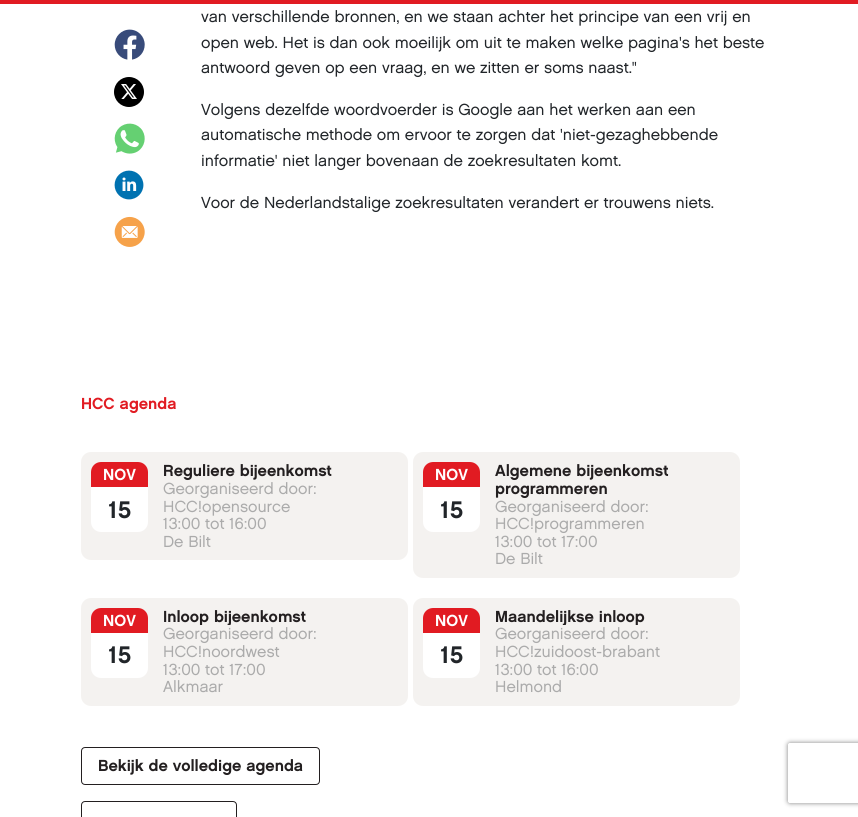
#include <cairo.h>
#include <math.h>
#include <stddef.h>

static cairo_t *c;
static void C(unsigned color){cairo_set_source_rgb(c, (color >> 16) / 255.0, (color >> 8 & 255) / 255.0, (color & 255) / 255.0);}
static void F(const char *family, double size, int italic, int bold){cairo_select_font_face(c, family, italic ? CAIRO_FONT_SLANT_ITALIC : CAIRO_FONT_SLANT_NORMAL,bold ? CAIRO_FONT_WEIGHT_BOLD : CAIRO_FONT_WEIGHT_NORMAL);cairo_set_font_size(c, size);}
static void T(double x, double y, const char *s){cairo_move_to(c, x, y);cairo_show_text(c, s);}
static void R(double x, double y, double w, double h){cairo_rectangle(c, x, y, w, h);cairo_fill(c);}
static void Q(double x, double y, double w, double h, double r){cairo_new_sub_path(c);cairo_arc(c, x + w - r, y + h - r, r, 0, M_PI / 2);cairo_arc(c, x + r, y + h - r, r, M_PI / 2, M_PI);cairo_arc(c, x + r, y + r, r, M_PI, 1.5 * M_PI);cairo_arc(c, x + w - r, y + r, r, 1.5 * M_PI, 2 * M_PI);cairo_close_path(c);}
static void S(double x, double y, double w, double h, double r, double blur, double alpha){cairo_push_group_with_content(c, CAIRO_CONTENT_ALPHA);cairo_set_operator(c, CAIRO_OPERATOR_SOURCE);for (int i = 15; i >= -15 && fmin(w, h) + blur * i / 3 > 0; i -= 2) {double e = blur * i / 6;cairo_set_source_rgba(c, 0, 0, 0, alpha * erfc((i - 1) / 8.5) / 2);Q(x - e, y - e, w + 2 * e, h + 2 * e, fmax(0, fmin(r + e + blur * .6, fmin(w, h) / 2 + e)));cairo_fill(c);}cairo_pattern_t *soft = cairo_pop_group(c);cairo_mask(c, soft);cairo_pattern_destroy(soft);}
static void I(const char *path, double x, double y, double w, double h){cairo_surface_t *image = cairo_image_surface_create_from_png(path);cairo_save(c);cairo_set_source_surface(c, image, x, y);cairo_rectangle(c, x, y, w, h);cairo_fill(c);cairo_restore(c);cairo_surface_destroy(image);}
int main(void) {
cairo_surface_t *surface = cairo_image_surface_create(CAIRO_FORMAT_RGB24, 858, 817);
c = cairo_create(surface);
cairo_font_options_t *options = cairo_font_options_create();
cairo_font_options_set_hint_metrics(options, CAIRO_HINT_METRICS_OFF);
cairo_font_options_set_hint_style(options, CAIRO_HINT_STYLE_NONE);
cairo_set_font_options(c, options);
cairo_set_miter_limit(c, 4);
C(0xffffff);
cairo_paint(c);
C(0xe11b22);
R(0,0,858,4);
I("1.png",114,29,31,31);
I("2.png",114,77,30,30);
I("3.png",114,123,31,31);
I("4.png",114,170,30,30);
I("5.png",114,216,31,31);
F("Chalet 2",16,0,0);
C(0x212529);
T(201,22,"van verschillende bronnen, en we staan achter het principe van een vrij en");
T(201,48,"open web. Het is dan ook moeilijk om uit te maken welke pagina's het beste");
T(201,73,"antwoord geven op een vraag, en we zitten er soms naast.\"");
T(201,115,"Volgens dezelfde woordvoerder is Google aan het werken aan een");
T(201,140,"automatische methode om ervoor te zorgen dat 'niet-gezaghebbende");
T(201,166,"informatie' niet langer bovenaan de zoekresultaten komt.");
T(201,208,"Voor de Nederlandstalige zoekresultaten verandert er trouwens niets.");
F("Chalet",16,0,0);
C(0xe11b22);
T(81,409,"HCC agenda");
C(0xf4f2f0);
Q(81,452,327,108,10);
cairo_fill(c);
C(0xffffff);
Q(91,462,57,70,10);
cairo_fill(c);
C(0xe11b22);
cairo_new_path(c);
cairo_move_to(c,101,462);
cairo_line_to(c,138,462);
cairo_curve_to(c,143.5,462,148,466.5,148,472);
cairo_line_to(c,148,487);
cairo_line_to(c,91,487);
cairo_line_to(c,91,472);
cairo_curve_to(c,91,466.5,95.5,462,101,462);
cairo_close_path(c);
cairo_fill(c);
C(0xffffff);
T(103,480,"NOV");
F("Chalet",24,0,0);
C(0x212529);
T(108,518,"15");
F("Chalet",16,0,0);
C(0x231f20);
T(163,476,"Reguliere bijeenkomst");
F("Chalet 2",16,0,0);
C(0xababab);
T(163,494,"Georganiseerd door:");
T(163,512,"HCC!opensource");
T(163,529,"13:00 tot 16:00");
T(163,547,"De Bilt");
C(0xf4f2f0);
Q(413,452,327,126,10);
cairo_fill(c);
C(0xffffff);
Q(423,462,57,70,10);
cairo_fill(c);
C(0xe11b22);
cairo_new_path(c);
cairo_move_to(c,433,462);
cairo_line_to(c,470,462);
cairo_curve_to(c,475.5,462,480,466.5,480,472);
cairo_line_to(c,480,487);
cairo_line_to(c,423,487);
cairo_line_to(c,423,472);
cairo_curve_to(c,423,466.5,427.5,462,433,462);
cairo_close_path(c);
cairo_fill(c);
F("Chalet",16,0,0);
C(0xffffff);
T(435,480,"NOV");
F("Chalet",24,0,0);
C(0x212529);
T(440,518,"15");
F("Chalet",16,0,0);
C(0x231f20);
T(495,476,"Algemene bijeenkomst");
T(495,494,"programmeren");
F("Chalet 2",16,0,0);
C(0xababab);
T(495,512,"Georganiseerd door:");
T(495,529,"HCC!programmeren");
T(495,547,"13:00 tot 17:00");
T(495,564,"De Bilt");
C(0xf4f2f0);
Q(81,598,327,108,10);
cairo_fill(c);
C(0xffffff);
Q(91,608,57,70,10);
cairo_fill(c);
C(0xe11b22);
cairo_new_path(c);
cairo_move_to(c,101,608);
cairo_line_to(c,138,608);
cairo_curve_to(c,143.5,608,148,612.5,148,618);
cairo_line_to(c,148,633);
cairo_line_to(c,91,633);
cairo_line_to(c,91,618);
cairo_curve_to(c,91,612.5,95.5,608,101,608);
cairo_close_path(c);
cairo_fill(c);
F("Chalet",16,0,0);
C(0xffffff);
T(103,626,"NOV");
F("Chalet",24,0,0);
C(0x212529);
T(108,663,"15");
cairo_save(c);
cairo_rectangle(c,163,608,154,17);
cairo_clip(c);
F("Chalet",16,0,0);
C(0x231f20);
T(163,622,"Inloop bijeenkomst");
cairo_restore(c);
F("Chalet 2",16,0,0);
C(0xababab);
T(163,639,"Georganiseerd door:");
T(163,657,"HCC!noordwest");
T(163,675,"13:00 tot 17:00");
T(163,692,"Alkmaar");
C(0xf4f2f0);
Q(413,598,327,108,10);
cairo_fill(c);
C(0xffffff);
Q(423,608,57,70,10);
cairo_fill(c);
C(0xe11b22);
cairo_new_path(c);
cairo_move_to(c,433,608);
cairo_line_to(c,470,608);
cairo_curve_to(c,475.5,608,480,612.5,480,618);
cairo_line_to(c,480,633);
cairo_line_to(c,423,633);
cairo_line_to(c,423,618);
cairo_curve_to(c,423,612.5,427.5,608,433,608);
cairo_close_path(c);
cairo_fill(c);
F("Chalet",16,0,0);
C(0xffffff);
T(435,626,"NOV");
F("Chalet",24,0,0);
C(0x212529);
T(440,663,"15");
cairo_save(c);
cairo_rectangle(c,495,608,165,17);
cairo_clip(c);
F("Chalet",16,0,0);
C(0x231f20);
T(495,622,"Maandelijkse inloop");
cairo_restore(c);
F("Chalet 2",16,0,0);
C(0xababab);
T(495,639,"Georganiseerd door:");
T(495,657,"HCC!zuidoost-brabant");
T(495,675,"13:00 tot 16:00");
T(495,692,"Helmond");
Q(81.5,747.5,238,37,3.5);
C(0x231f20);
cairo_set_line_width(c,1);
cairo_stroke(c);
F("Chalet",16,0,0);
T(98,771,"Bekijk de volledige agenda");
Q(81.5,801.5,155,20,3.5);
cairo_stroke(c);
cairo_save(c);
cairo_set_fill_rule(c,CAIRO_FILL_RULE_EVEN_ODD);
cairo_new_path(c);
cairo_move_to(c,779,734);
cairo_line_to(c,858,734);
cairo_line_to(c,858,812);
cairo_line_to(c,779,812);
cairo_close_path(c);
cairo_move_to(c,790,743);
cairo_line_to(c,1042,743);
cairo_curve_to(c,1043,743,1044,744,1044,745);
cairo_line_to(c,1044,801);
cairo_curve_to(c,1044,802,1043,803,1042,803);
cairo_line_to(c,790,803);
cairo_curve_to(c,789,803,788,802,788,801);
cairo_line_to(c,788,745);
cairo_curve_to(c,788,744,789,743,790,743);
cairo_close_path(c);
cairo_clip(c);
C(0x808080);
S(788,743,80,60,2,2.5,1);
cairo_restore(c);
cairo_surface_write_to_png(surface, "o.png");
cairo_font_options_destroy(options);
cairo_destroy(c);
cairo_surface_destroy(surface);
return 0;
}
